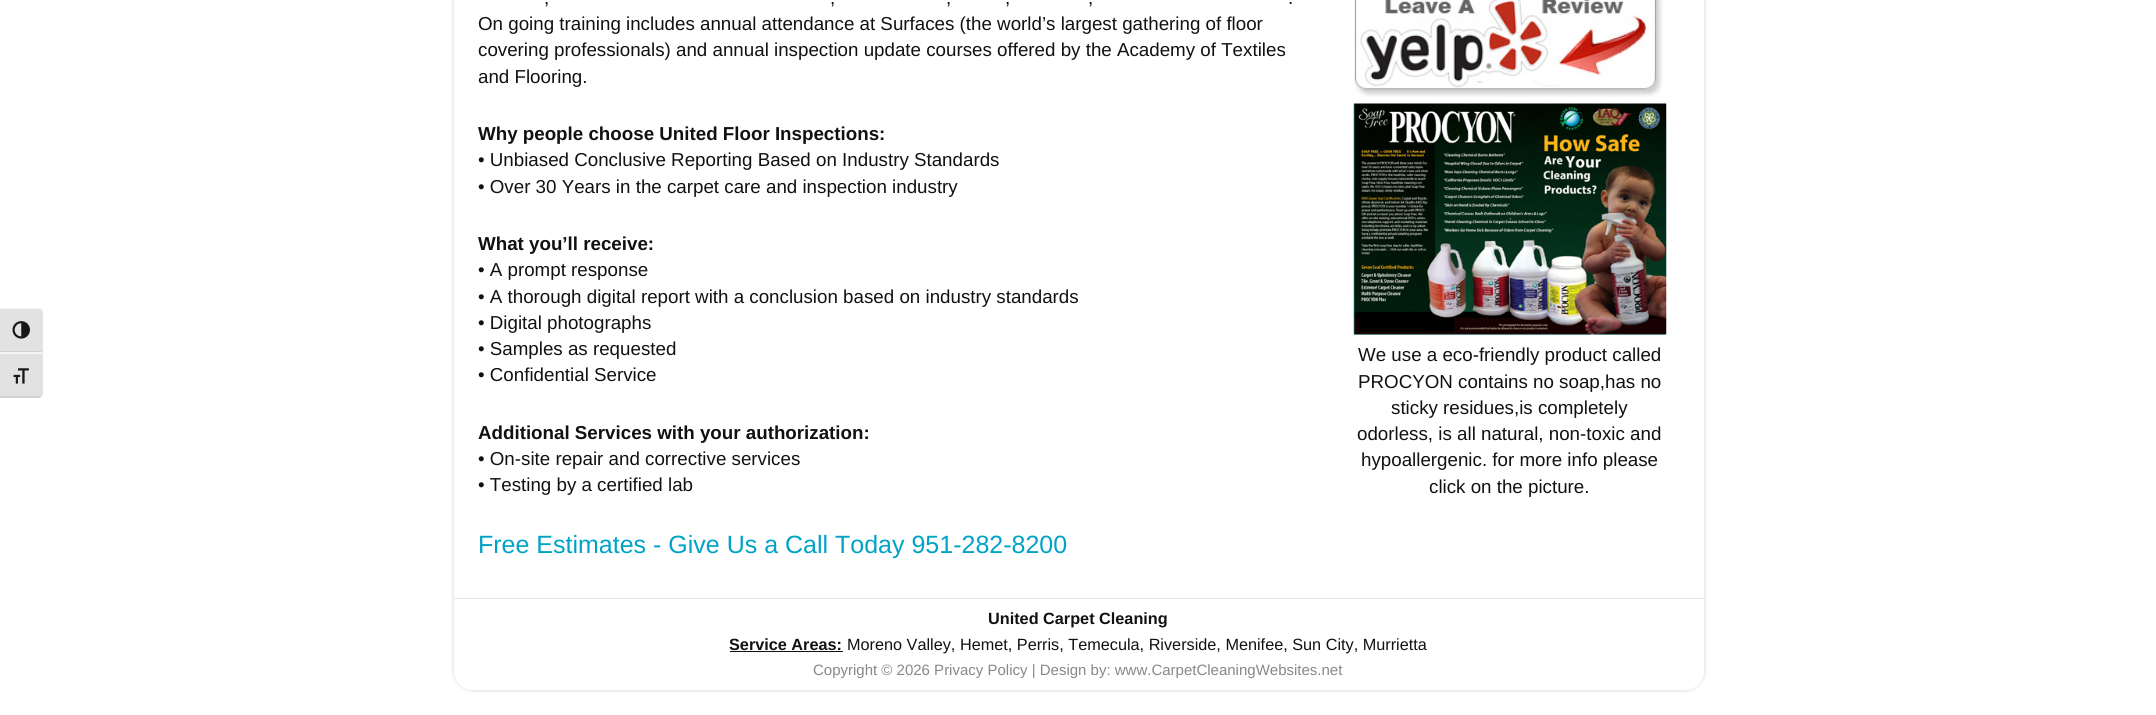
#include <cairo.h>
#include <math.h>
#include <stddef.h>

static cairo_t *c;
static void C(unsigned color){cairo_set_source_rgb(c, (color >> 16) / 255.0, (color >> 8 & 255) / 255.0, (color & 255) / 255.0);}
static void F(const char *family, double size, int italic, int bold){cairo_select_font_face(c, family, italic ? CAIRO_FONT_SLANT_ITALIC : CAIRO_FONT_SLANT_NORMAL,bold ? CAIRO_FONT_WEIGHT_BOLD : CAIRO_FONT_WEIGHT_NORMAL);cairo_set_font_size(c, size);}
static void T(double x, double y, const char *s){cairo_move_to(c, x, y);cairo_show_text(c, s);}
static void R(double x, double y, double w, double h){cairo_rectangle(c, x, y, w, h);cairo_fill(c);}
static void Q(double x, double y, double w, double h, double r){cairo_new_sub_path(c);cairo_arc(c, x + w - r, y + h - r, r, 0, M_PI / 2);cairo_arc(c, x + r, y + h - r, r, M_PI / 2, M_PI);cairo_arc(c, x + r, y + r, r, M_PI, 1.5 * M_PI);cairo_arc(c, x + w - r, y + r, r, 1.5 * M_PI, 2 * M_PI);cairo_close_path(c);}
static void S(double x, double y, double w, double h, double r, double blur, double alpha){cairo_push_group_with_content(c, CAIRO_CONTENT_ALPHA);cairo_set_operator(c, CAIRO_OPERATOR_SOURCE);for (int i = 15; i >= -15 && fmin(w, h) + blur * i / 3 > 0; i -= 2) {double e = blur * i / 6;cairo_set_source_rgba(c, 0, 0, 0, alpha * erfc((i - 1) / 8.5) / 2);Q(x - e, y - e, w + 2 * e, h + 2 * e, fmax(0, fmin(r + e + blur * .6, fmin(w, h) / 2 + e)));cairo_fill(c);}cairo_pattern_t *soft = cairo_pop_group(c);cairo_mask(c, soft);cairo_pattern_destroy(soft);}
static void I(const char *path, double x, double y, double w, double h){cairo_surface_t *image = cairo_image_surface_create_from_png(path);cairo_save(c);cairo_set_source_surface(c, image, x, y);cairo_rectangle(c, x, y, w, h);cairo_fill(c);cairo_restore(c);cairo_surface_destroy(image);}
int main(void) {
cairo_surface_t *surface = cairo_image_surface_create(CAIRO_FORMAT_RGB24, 2156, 715);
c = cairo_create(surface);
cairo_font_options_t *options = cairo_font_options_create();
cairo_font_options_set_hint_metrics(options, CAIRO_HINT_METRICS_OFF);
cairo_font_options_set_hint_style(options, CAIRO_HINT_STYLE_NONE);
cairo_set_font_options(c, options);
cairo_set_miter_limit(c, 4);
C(0xffffff);
cairo_paint(c);
C(0xe2e2e2);
cairo_new_path(c);
cairo_move_to(c,0,308);
cairo_line_to(c,38,308);
cairo_curve_to(c,41,308,43,310,43,313);
cairo_line_to(c,43,353);
cairo_line_to(c,0,353);
cairo_close_path(c);
cairo_fill(c);
C(0xf5f5f5);
cairo_new_path(c);
cairo_move_to(c,0,309);
cairo_line_to(c,38,309);
cairo_curve_to(c,40,309,42,310,42,312);
cairo_curve_to(c,42,310,40,308,38,308);
cairo_line_to(c,0,308);
cairo_close_path(c);
cairo_fill(c);
C(0xd2d2d2);
R(0,351,42,1);
I("1.png",12,321,18,18);
C(0xe2e2e2);
cairo_new_path(c);
cairo_move_to(c,0,353);
cairo_line_to(c,43,353);
cairo_line_to(c,43,393);
cairo_curve_to(c,43,396,41,398,38,398);
cairo_line_to(c,0,398);
cairo_close_path(c);
cairo_fill(c);
C(0xf5f5f5);
R(0,352,42,2);
C(0xd2d2d2);
cairo_new_path(c);
cairo_move_to(c,39,398);
cairo_curve_to(c,41,397,42,394,42,392);
cairo_curve_to(c,42,395,40,396,38,396);
cairo_line_to(c,0,396);
cairo_line_to(c,0,398);
cairo_close_path(c);
cairo_fill(c);
I("2.png",13,368,16,16);
C(0xcccccc);
S(454,-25,1250,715,19,2,1);
C(0xffffff);
Q(454,-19,1250,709,19);
cairo_fill(c);
F("Liberation Sans",18.75,0,0);
C(0x111111);
T(544,4,",");
T(830,4,",");
T(946,4,",");
T(1005,4,",");
T(1088,4,",");
T(1288,4,".");
T(478,30,"On going training includes annual attendance at Surfaces (the world’s largest gathering of floor");
T(478,56,"covering professionals) and annual inspection update courses offered by the Academy of Textiles");
T(478,83,"and Flooring.");
F("Liberation Sans",18.75,0,1);
T(478,140,"Why people choose United Floor Inspections:");
F("Liberation Sans",18.75,0,0);
T(478,166,"• Unbiased Conclusive Reporting Based on Industry Standards");
T(478,193,"• Over 30 Years in the carpet care and inspection industry");
F("Liberation Sans",18.75,0,1);
T(478,250,"What you’ll receive:");
F("Liberation Sans",18.75,0,0);
T(478,276,"• A prompt response");
T(478,303,"• A thorough digital report with a conclusion based on industry standards");
T(478,329,"• Digital photographs");
T(478,355,"• Samples as requested");
T(478,381,"• Confidential Service");
F("Liberation Sans",18.75,0,1);
T(478,439,"Additional Services with your authorization:");
F("Liberation Sans",18.75,0,0);
T(478,465,"• On-site repair and corrective services");
T(478,491,"• Testing by a certified lab");
F("Liberation Sans",25,0,0);
C(0x00a3c6);
T(478,553,"Free Estimates - Give Us a Call Today 951-282-8200");
I("3.png",1354,0,309,97);
I("4.png",1353,103,314,232);
F("Liberation Sans",18.75,0,0);
C(0x111111);
T(1358,361,"We use a eco-friendly product called");
T(1358,388,"PROCYON contains no soap,has no");
T(1391,414,"sticky residues,is completely");
T(1357,440,"odorless, is all natural, non-toxic and");
T(1361,466,"hypoallergenic. for more info please");
T(1429,493,"click on the picture.");
C(0xffffff);
cairo_new_path(c);
cairo_move_to(c,454,599);
cairo_line_to(c,1704,599);
cairo_line_to(c,1704,671);
cairo_curve_to(c,1704,681.5,1695.5,690,1685,690);
cairo_line_to(c,473,690);
cairo_curve_to(c,462.5,690,454,681.5,454,671);
cairo_close_path(c);
cairo_fill(c);
C(0xe8e8e8);
R(454,598,1250,1);
F("Liberation Sans",16.25,0,1);
C(0x111111);
T(988,624,"United Carpet Cleaning");
T(729,650,"Service Areas:");
R(730,651,113,1);
F("Liberation Sans",16.25,0,0);
T(847,650,"Moreno Valley, Hemet, Perris, Temecula, Riverside, Menifee, Sun City, Murrietta");
F("Liberation Sans",15,0,0);
C(0x888888);
T(813,675,"Copyright © 2026 Privacy Policy | Design by: www.CarpetCleaningWebsites.net");
cairo_surface_write_to_png(surface, "o.png");
cairo_font_options_destroy(options);
cairo_destroy(c);
cairo_surface_destroy(surface);
return 0;
}
